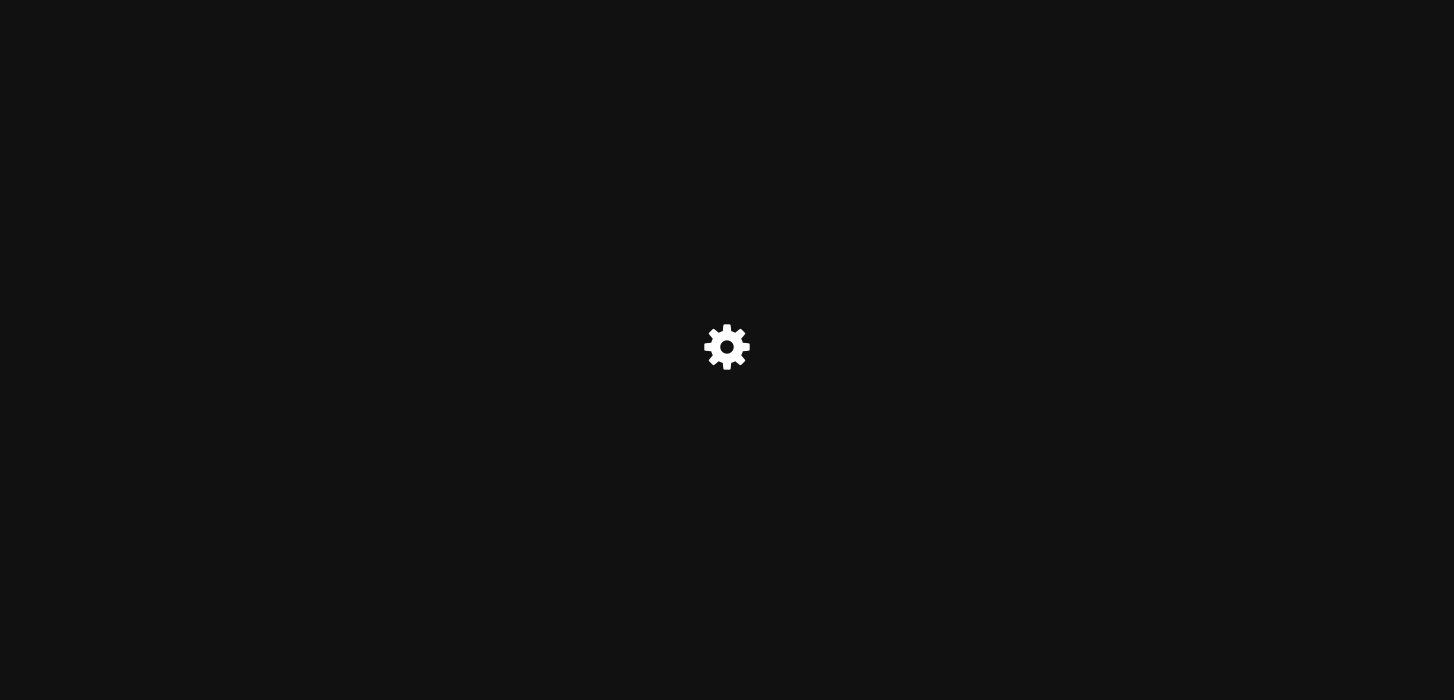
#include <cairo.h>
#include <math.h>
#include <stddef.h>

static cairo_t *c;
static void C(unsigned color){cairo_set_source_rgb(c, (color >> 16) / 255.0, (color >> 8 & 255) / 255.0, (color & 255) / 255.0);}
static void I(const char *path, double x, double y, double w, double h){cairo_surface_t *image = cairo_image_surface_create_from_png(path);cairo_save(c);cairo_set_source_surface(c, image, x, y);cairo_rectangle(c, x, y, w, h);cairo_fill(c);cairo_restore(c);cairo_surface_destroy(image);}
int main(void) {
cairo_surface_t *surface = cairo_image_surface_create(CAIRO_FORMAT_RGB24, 1454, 700);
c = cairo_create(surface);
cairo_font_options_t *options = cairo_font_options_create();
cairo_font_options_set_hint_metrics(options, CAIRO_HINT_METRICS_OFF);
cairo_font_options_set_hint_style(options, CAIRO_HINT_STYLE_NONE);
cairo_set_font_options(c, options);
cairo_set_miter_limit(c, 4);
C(0x111111);
cairo_paint(c);
I("1.png",704,324,46,46);
cairo_surface_write_to_png(surface, "o.png");
cairo_font_options_destroy(options);
cairo_destroy(c);
cairo_surface_destroy(surface);
return 0;
}
